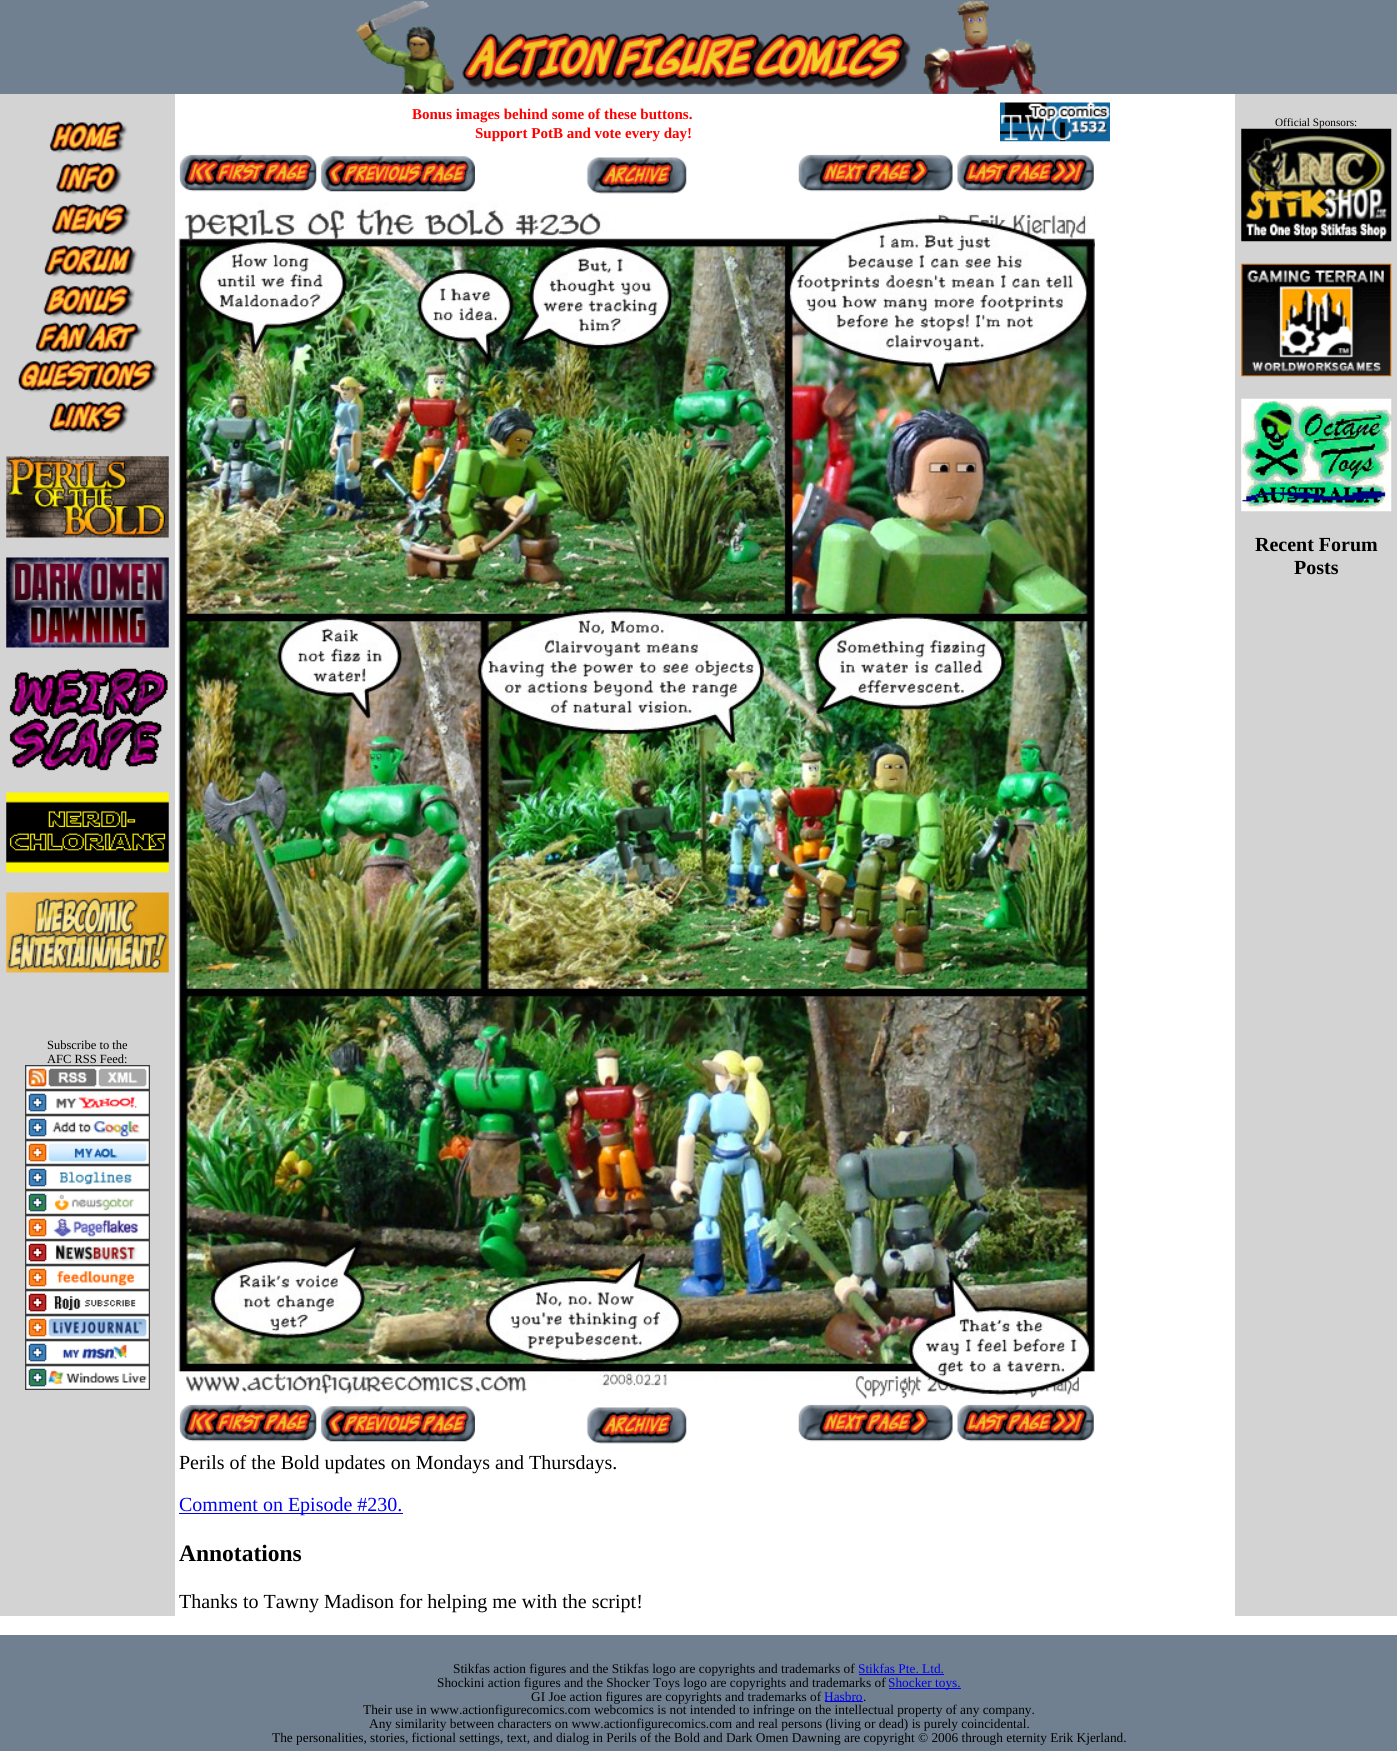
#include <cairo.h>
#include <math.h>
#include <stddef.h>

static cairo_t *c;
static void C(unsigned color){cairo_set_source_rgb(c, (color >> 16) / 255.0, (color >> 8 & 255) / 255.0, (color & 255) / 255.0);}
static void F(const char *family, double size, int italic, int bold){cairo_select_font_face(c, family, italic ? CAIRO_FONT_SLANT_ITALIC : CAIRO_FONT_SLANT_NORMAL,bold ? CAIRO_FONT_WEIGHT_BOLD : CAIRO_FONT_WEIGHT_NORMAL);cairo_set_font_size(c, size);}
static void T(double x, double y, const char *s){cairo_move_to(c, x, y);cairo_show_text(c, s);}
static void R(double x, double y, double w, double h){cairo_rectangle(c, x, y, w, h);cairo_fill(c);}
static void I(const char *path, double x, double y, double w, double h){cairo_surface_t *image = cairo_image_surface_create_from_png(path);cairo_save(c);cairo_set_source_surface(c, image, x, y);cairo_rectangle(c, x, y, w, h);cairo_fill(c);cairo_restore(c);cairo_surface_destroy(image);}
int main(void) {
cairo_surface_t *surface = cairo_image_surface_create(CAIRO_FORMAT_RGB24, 1397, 1751);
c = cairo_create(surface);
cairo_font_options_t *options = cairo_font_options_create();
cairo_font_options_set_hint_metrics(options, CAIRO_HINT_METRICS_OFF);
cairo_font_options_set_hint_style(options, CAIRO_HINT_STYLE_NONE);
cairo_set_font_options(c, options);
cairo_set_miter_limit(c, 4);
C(0xffffff);
cairo_paint(c);
C(0x708090);
R(0,0,1397,94);
I("1.png",356,1,98,93);
I("2.png",462,32,449,58);
I("3.png",923,1,120,93);
F("Liberation Serif",15,0,1);
C(0xff0000);
T(412,119,"Bonus images behind some of these buttons.");
T(475,138,"Support PotB and vote every day!");
I("4.png",1000,102,110,40);
I("5.png",179,154,138,38);
I("6.png",321,156,154,36);
I("7.png",586,157,101,37);
I("8.png",798,154,155,38);
I("9.png",957,154,137,38);
I("10.png",178,201,917,1198);
I("5.png",179,1404,138,38);
I("6.png",321,1406,154,36);
I("7.png",586,1407,101,37);
I("8.png",798,1404,155,38);
I("9.png",957,1404,137,38);
F("Liberation Serif",20,0,0);
C(0x000000);
T(179,1469,"Perils of the Bold updates on Mondays and Thursdays.");
C(0x0000ee);
R(179,1513,224,1);
T(179,1511,"Comment on Episode #230.");
F("Liberation Serif",23.5,0,1);
C(0x000000);
T(179,1561,"Annotations");
F("Liberation Serif",20,0,0);
T(179,1608,"Thanks to Tawny Madison for helping me with the script!");
C(0xd3d3d3);
R(1235,94,162,1522);
F("Liberation Serif",11.25,0,0);
C(0x000000);
T(1275,126,"Official Sponsors:");
I("11.png",1241,128,151,114);
I("12.png",1241,263,151,114);
I("13.png",1241,398,151,114);
F("Liberation Serif",20,0,1);
T(1255,551,"Recent Forum");
T(1294,574,"Posts");
C(0xd3d3d3);
R(0,94,175,1522);
I("14.png",49,121,79,33);
I("15.png",56,162,67,33);
I("16.png",51,203,81,34);
I("17.png",43,244,95,33);
I("18.png",43,284,92,35);
I("19.png",35,322,108,32);
I("20.png",18,359,141,34);
I("21.png",48,401,82,33);
I("22.png",6,456,163,82);
I("23.png",6,557,163,91);
I("24.png",9,668,159,103);
I("25.png",6,792,163,81);
I("26.png",6,892,163,81);
F("Liberation Serif",12.5,0,0);
C(0x000000);
T(47,1049,"Subscribe to the");
T(47,1063,"AFC RSS Feed:");
I("27.png",25,1065,125,25);
I("28.png",25,1090,125,25);
I("29.png",25,1115,125,25);
I("30.png",25,1140,125,25);
I("31.png",25,1165,125,25);
I("32.png",25,1190,125,25);
I("33.png",25,1215,125,25);
I("34.png",25,1240,125,25);
I("35.png",25,1265,125,25);
I("36.png",25,1290,125,25);
I("37.png",25,1315,125,25);
I("38.png",25,1340,125,25);
I("39.png",25,1365,125,25);
C(0x708090);
R(0,1635,1397,116);
F("Liberation Serif",13.33,0,0);
C(0x000000);
T(453,1673,"Stikfas action figures and the Stikfas logo are copyrights and trademarks of");
C(0x0000ee);
T(858,1673,"Stikfas Pte. Ltd.");
R(859,1674,85,1);
C(0x000000);
T(437,1687,"Shockini action figures and the Shocker Toys logo are copyrights and trademarks of");
C(0x0000ee);
R(889,1688,72,1);
T(888,1687,"Shocker toys.");
C(0x000000);
T(531,1701,"GI Joe action figures are copyrights and trademarks of");
C(0x0000ee);
R(825,1701,38,1);
T(824,1701,"Hasbro");
C(0x000000);
T(863,1701,".");
T(363,1714,"Their use in www.actionfigurecomics.com webcomics is not intended to infringe on the intellectual property of any company.");
T(369,1728,"Any similarity between characters on www.actionfigurecomics.com and real persons (living or dead) is purely coincidental.");
T(272,1742,"The personalities, stories, fictional settings, text, and dialog in Perils of the Bold and Dark Omen Dawning are copyright © 2006 through eternity Erik Kjerland.");
cairo_surface_write_to_png(surface, "o.png");
cairo_font_options_destroy(options);
cairo_destroy(c);
cairo_surface_destroy(surface);
return 0;
}
